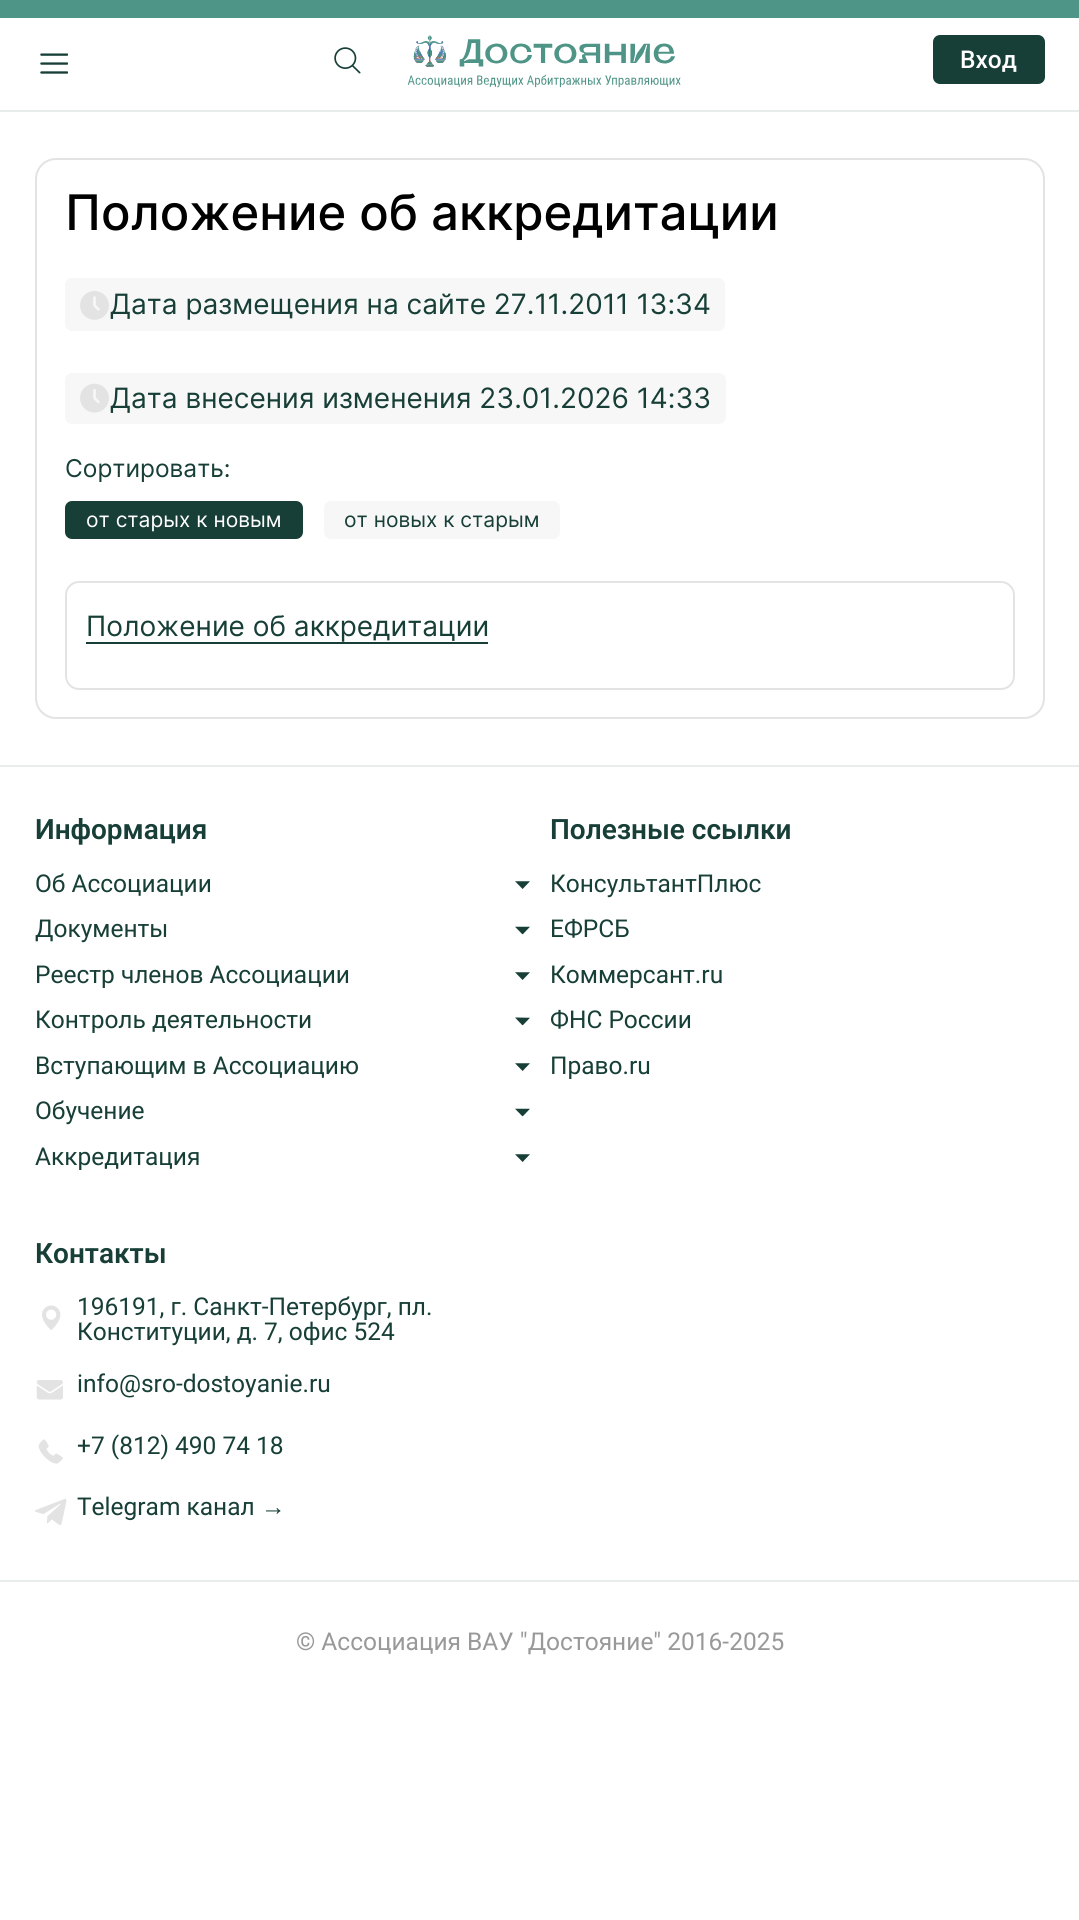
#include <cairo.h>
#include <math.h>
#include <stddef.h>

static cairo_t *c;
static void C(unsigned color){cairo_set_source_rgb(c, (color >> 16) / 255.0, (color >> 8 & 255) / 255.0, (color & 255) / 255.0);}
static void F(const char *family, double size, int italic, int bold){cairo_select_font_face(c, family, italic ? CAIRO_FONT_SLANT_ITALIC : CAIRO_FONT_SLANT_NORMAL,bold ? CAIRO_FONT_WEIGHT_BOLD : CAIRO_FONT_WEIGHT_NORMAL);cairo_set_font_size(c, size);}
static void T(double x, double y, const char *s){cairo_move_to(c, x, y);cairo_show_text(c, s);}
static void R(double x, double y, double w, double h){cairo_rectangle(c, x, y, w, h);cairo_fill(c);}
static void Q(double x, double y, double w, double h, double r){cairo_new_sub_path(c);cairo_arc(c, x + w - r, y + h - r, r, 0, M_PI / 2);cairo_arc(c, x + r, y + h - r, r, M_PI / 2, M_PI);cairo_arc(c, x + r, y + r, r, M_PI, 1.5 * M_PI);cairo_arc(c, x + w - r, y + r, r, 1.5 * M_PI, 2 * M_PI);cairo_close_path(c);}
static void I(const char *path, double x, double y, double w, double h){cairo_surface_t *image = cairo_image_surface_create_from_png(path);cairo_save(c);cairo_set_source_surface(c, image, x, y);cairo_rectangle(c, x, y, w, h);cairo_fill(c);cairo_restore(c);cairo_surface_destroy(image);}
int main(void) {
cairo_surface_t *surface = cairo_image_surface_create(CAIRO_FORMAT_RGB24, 1079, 1920);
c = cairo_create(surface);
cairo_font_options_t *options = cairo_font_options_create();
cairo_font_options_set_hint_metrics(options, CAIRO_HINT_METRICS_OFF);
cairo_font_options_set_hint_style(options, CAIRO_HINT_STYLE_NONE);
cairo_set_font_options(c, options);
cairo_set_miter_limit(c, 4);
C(0xffffff);
cairo_paint(c);
C(0x4f9587);
R(0,0,1079,18);
C(0xe8eceb);
R(0,110,1079,2);
I("1.png",40,53,28,21);
I("2.png",334,47,27,27);
I("3.png",408,35,273,53);
C(0x173f37);
Q(933,35,112,49,7);
cairo_fill(c);
F("Roboto Medium",24.5,0,0);
C(0xffffff);
T(960,68,"Вход");
Q(36,159,1008,559,20);
C(0xe3e3e3);
cairo_stroke(c);
F("Inter Medium",49,0,0);
C(0x000000);
T(65,230,"Положение об аккредитации");
C(0xf7f7f7);
Q(65,278,660,53,7);
cairo_fill(c);
I("4.png",80,291,29,29);
F("Inter",28,0,0);
C(0x173f37);
T(110,314,"Дата размещения на сайте 27.11.2011 13:34");
C(0xf7f7f7);
Q(65,373,661,51,7);
cairo_fill(c);
I("5.png",80,383,29,30);
C(0x173f37);
T(110,408,"Дата внесения изменения 23.01.2026 14:33");
F("Inter",24.5,0,0);
T(65,477,"Сортировать:");
Q(65,501,238,38,7);
cairo_fill(c);
F("Inter",21,0,0);
C(0xffffff);
T(86,527,"от старых к новым");
C(0xf7f7f7);
Q(324,501,236,38,7);
cairo_fill(c);
C(0x173f37);
T(344,527,"от новых к старым");
Q(66,582,948,107,13);
C(0xe3e3e3);
cairo_stroke(c);
F("Inter",28,0,0);
C(0x173f37);
T(86,636,"Положение об аккредитации");
R(86,642,402,2);
C(0xe8eceb);
R(0,765,1079,2);
F("Roboto SemiBold",28,0,0);
C(0x173f37);
T(35,839,"Информация");
F("Roboto",24.5,0,0);
T(35,892,"Об Ассоциации");
I("6.png",515,881,15,8);
T(35,937,"Документы");
I("7.png",515,926,15,9);
T(35,983,"Реестр членов Ассоциации");
I("6.png",515,972,15,8);
T(35,1028,"Контроль деятельности");
I("8.png",515,1017,15,9);
T(35,1074,"Вступающим в Ассоциацию");
I("6.png",515,1063,15,8);
T(35,1119,"Обучение");
I("7.png",515,1108,15,9);
T(35,1165,"Аккредитация");
I("6.png",515,1154,15,8);
F("Roboto SemiBold",28,0,0);
T(550,839,"Полезные ссылки");
F("Roboto",24.5,0,0);
T(550,892,"КонсультантПлюс");
T(550,937,"ЕФРСБ");
T(550,983,"Коммерсант.ru");
T(550,1028,"ФНС России");
T(550,1074,"Право.ru");
F("Roboto SemiBold",28,0,0);
T(35,1263,"Контакты");
I("9.png",42,1305,19,25);
F("Roboto",24.5,0,0);
T(77,1315,"196191, г. Санкт-Петербург, пл.");
T(77,1340,"Конституции, д. 7, офис 524");
I("10.png",36,1380,27,20);
T(77,1392,"info@sro-dostoyanie.ru");
I("11.png",38,1439,25,25);
T(77,1454,"+7 (812) 490 74 18");
I("12.png",35,1499,32,26);
T(77,1515,"Telegram канал");
F("Liberation Sans",24.5,0,0);
T(261,1515,"→");
C(0xe8eceb);
R(0,1580,1079,2);
F("Roboto",24.5,0,0);
C(0x999999);
T(296,1650,"© Ассоциация ВАУ \"Достояние\" 2016-2025");
cairo_surface_write_to_png(surface, "o.png");
cairo_font_options_destroy(options);
cairo_destroy(c);
cairo_surface_destroy(surface);
return 0;
}
